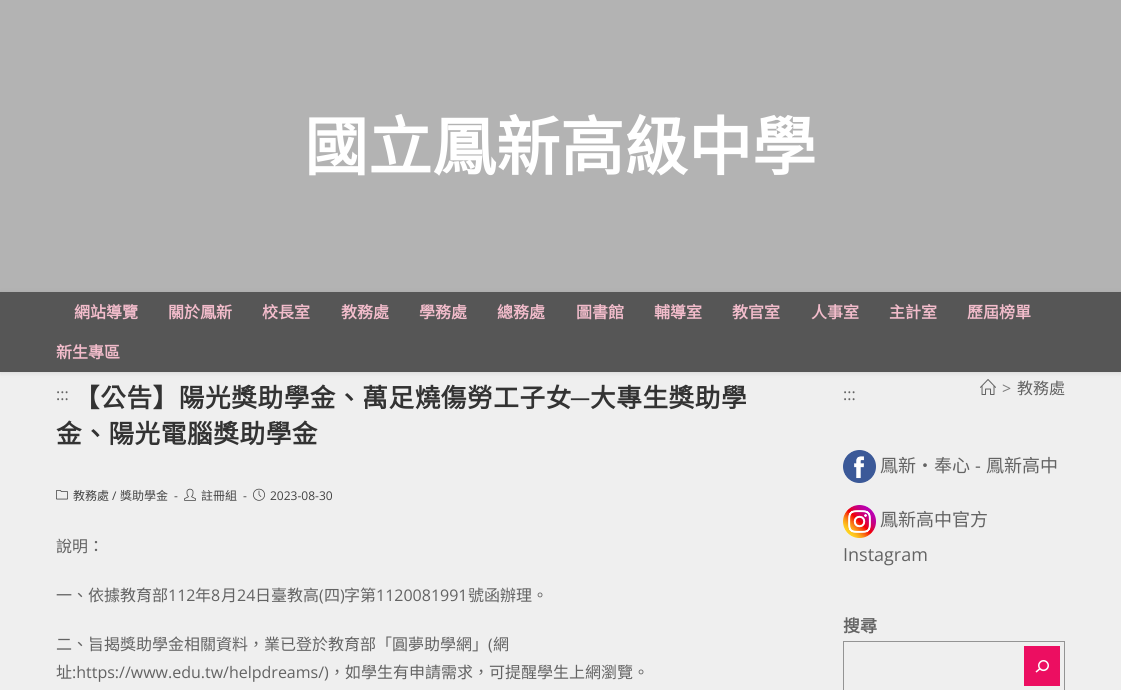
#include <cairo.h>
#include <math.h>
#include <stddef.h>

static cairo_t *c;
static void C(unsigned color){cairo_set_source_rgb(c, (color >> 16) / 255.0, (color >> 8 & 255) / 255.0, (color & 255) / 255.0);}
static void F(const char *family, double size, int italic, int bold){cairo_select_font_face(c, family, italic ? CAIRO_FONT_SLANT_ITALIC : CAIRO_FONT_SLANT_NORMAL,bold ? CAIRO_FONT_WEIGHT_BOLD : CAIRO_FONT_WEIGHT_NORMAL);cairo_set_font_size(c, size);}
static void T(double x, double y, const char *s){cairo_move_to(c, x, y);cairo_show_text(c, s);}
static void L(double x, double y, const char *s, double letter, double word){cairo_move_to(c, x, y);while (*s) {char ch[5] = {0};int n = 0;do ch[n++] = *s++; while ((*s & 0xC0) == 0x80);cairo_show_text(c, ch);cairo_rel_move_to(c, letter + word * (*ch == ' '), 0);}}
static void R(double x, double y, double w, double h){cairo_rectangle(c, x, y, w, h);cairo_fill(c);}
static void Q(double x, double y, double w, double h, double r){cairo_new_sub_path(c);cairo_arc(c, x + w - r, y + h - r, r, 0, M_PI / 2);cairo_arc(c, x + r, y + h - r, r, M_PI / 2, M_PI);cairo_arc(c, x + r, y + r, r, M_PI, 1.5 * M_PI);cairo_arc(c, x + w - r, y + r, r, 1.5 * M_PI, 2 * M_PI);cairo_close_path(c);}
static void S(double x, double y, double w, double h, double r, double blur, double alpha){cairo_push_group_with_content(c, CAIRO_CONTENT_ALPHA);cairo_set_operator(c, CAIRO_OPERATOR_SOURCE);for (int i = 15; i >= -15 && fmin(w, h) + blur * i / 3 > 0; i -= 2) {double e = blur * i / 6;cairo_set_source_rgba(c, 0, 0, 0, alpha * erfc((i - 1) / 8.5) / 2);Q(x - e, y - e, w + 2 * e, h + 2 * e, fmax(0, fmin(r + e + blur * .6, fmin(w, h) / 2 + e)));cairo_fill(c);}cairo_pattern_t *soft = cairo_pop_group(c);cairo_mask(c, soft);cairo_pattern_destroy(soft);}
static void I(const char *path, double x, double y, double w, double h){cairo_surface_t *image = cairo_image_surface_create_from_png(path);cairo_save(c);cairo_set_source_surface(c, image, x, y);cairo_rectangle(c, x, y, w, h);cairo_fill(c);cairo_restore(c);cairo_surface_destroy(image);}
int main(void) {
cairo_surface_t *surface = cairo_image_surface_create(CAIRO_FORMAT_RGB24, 1121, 690);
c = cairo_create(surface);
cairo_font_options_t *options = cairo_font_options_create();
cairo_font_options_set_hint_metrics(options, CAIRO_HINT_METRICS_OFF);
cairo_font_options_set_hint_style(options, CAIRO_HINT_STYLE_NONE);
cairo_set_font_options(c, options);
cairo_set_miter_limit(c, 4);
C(0xefefef);
cairo_paint(c);
C(0xb3b3b3);
R(0,0,1121,292);
F("Noto Sans CJK TC",64,0,1);
C(0xffffff);
T(304,170,"國立鳳新高級中學");
I("1.png",980,379,16,16);
C(0x000000);
S(0,293,1121,80,0,2.5,.1);
C(0x565656);
R(0,292,1121,80);
F("Noto Sans CJK TC",16,0,1);
C(0xf2bccb);
T(74,318,"網站導覽");
T(168,318,"關於鳳新");
T(262,318,"校長室");
T(341,318,"教務處");
T(419,318,"學務處");
T(497,318,"總務處");
T(576,318,"圖書館");
T(654,318,"輔導室");
T(732,318,"教官室");
T(811,318,"人事室");
T(889,318,"主計室");
T(967,318,"歷屆榜單");
T(56,358,"新生專區");
F("Open Sans",16,0,0);
C(0x7c7c7c);
T(1002,394,">");
F("Noto Sans CJK TC",16,0,0);
C(0x636363);
T(1017,394,"教務處");
F("Noto Sans CJK TC",25.6,0,1);
C(0x333333);
L(74,407,"【公告】陽光獎助學金、萬足燒傷勞工子女",.6,0);
F("Liberation Sans",25.6,0,1);
L(571,407,"─",.6,0);
F("Noto Sans CJK TC",25.6,0,1);
L(590,407,"大專生獎助學",.6,0);
L(56,443,"金、陽光電腦獎助學金",.6,0);
F("Open Sans",16,0,0);
C(0x636363);
T(56,400,":::");
I("2.png",56,490,12,10);
F("Noto Sans CJK TC",12,0,0);
C(0x424242);
T(73,500,"教務處");
F("Open Sans",12,0,0);
T(112,500,"/");
F("Noto Sans CJK TC",12,0,0);
T(120,500,"獎助學金");
F("Open Sans",12,0,0);
T(174,500,"-");
I("3.png",184,488,12,13);
F("Noto Sans CJK TC",12,0,0);
T(201,500,"註冊組");
F("Open Sans",12,0,0);
T(243,500,"-");
I("4.png",253,488,12,13);
T(270,500,"2023-08-30");
F("Noto Sans CJK TC",16,0,0);
C(0x636363);
T(56,552,"說明：");
T(56,601,"一、依據教育部");
F("Open Sans",16,0,0);
T(168,601,"112");
F("Noto Sans CJK TC",16,0,0);
T(195,601,"年");
F("Open Sans",16,0,0);
T(211,601,"8");
F("Noto Sans CJK TC",16,0,0);
T(221,601,"月");
F("Open Sans",16,0,0);
T(237,601,"24");
F("Noto Sans CJK TC",16,0,0);
T(255,601,"日臺教高");
F("Open Sans",16,0,0);
T(319,601,"(");
F("Noto Sans CJK TC",16,0,0);
T(324,601,"四");
F("Open Sans",16,0,0);
T(340,601,")");
F("Noto Sans CJK TC",16,0,0);
T(344,601,"字第");
F("Open Sans",16,0,0);
T(376,601,"1120081991");
F("Noto Sans CJK TC",16,0,0);
T(468,601,"號函辦理。");
T(56,650,"二、旨揭獎助學金相關資料，業已登於教育部「圓夢助學網」");
F("Open Sans",16,0,0);
T(488,650,"(");
F("Noto Sans CJK TC",16,0,0);
T(493,650,"網");
T(56,678,"址");
F("Open Sans",16,0,0);
T(72,678,":https://www.edu.tw/helpdreams/)");
F("Noto Sans CJK TC",16,0,0);
T(329,678,"，如學生有申請需求，可提醒學生上網瀏覽。");
F("Open Sans",16,0,0);
T(843,400,":::");
I("5.png",843,450,33,33);
F("Noto Sans CJK TC",18,0,0);
T(880,472,"鳳新・奉心");
F("Open Sans",18,0,0);
T(975,472,"-");
F("Noto Sans CJK TC",18,0,0);
T(986,472,"鳳新高中");
I("6.png",843,505,33,33);
T(880,526,"鳳新高中官方");
F("Open Sans",18,0,0);
T(843,561,"Instagram");
F("Noto Sans CJK TC",17,0,1);
T(843,632,"搜尋");
cairo_rectangle(c,843.5,641.5,221,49);
C(0x949494);
cairo_set_line_width(c,1);
cairo_stroke(c);
C(0xec0e61);
R(1024,646,36,40);
I("7.png",1035,660,14,13);
cairo_surface_write_to_png(surface, "o.png");
cairo_font_options_destroy(options);
cairo_destroy(c);
cairo_surface_destroy(surface);
return 0;
}
